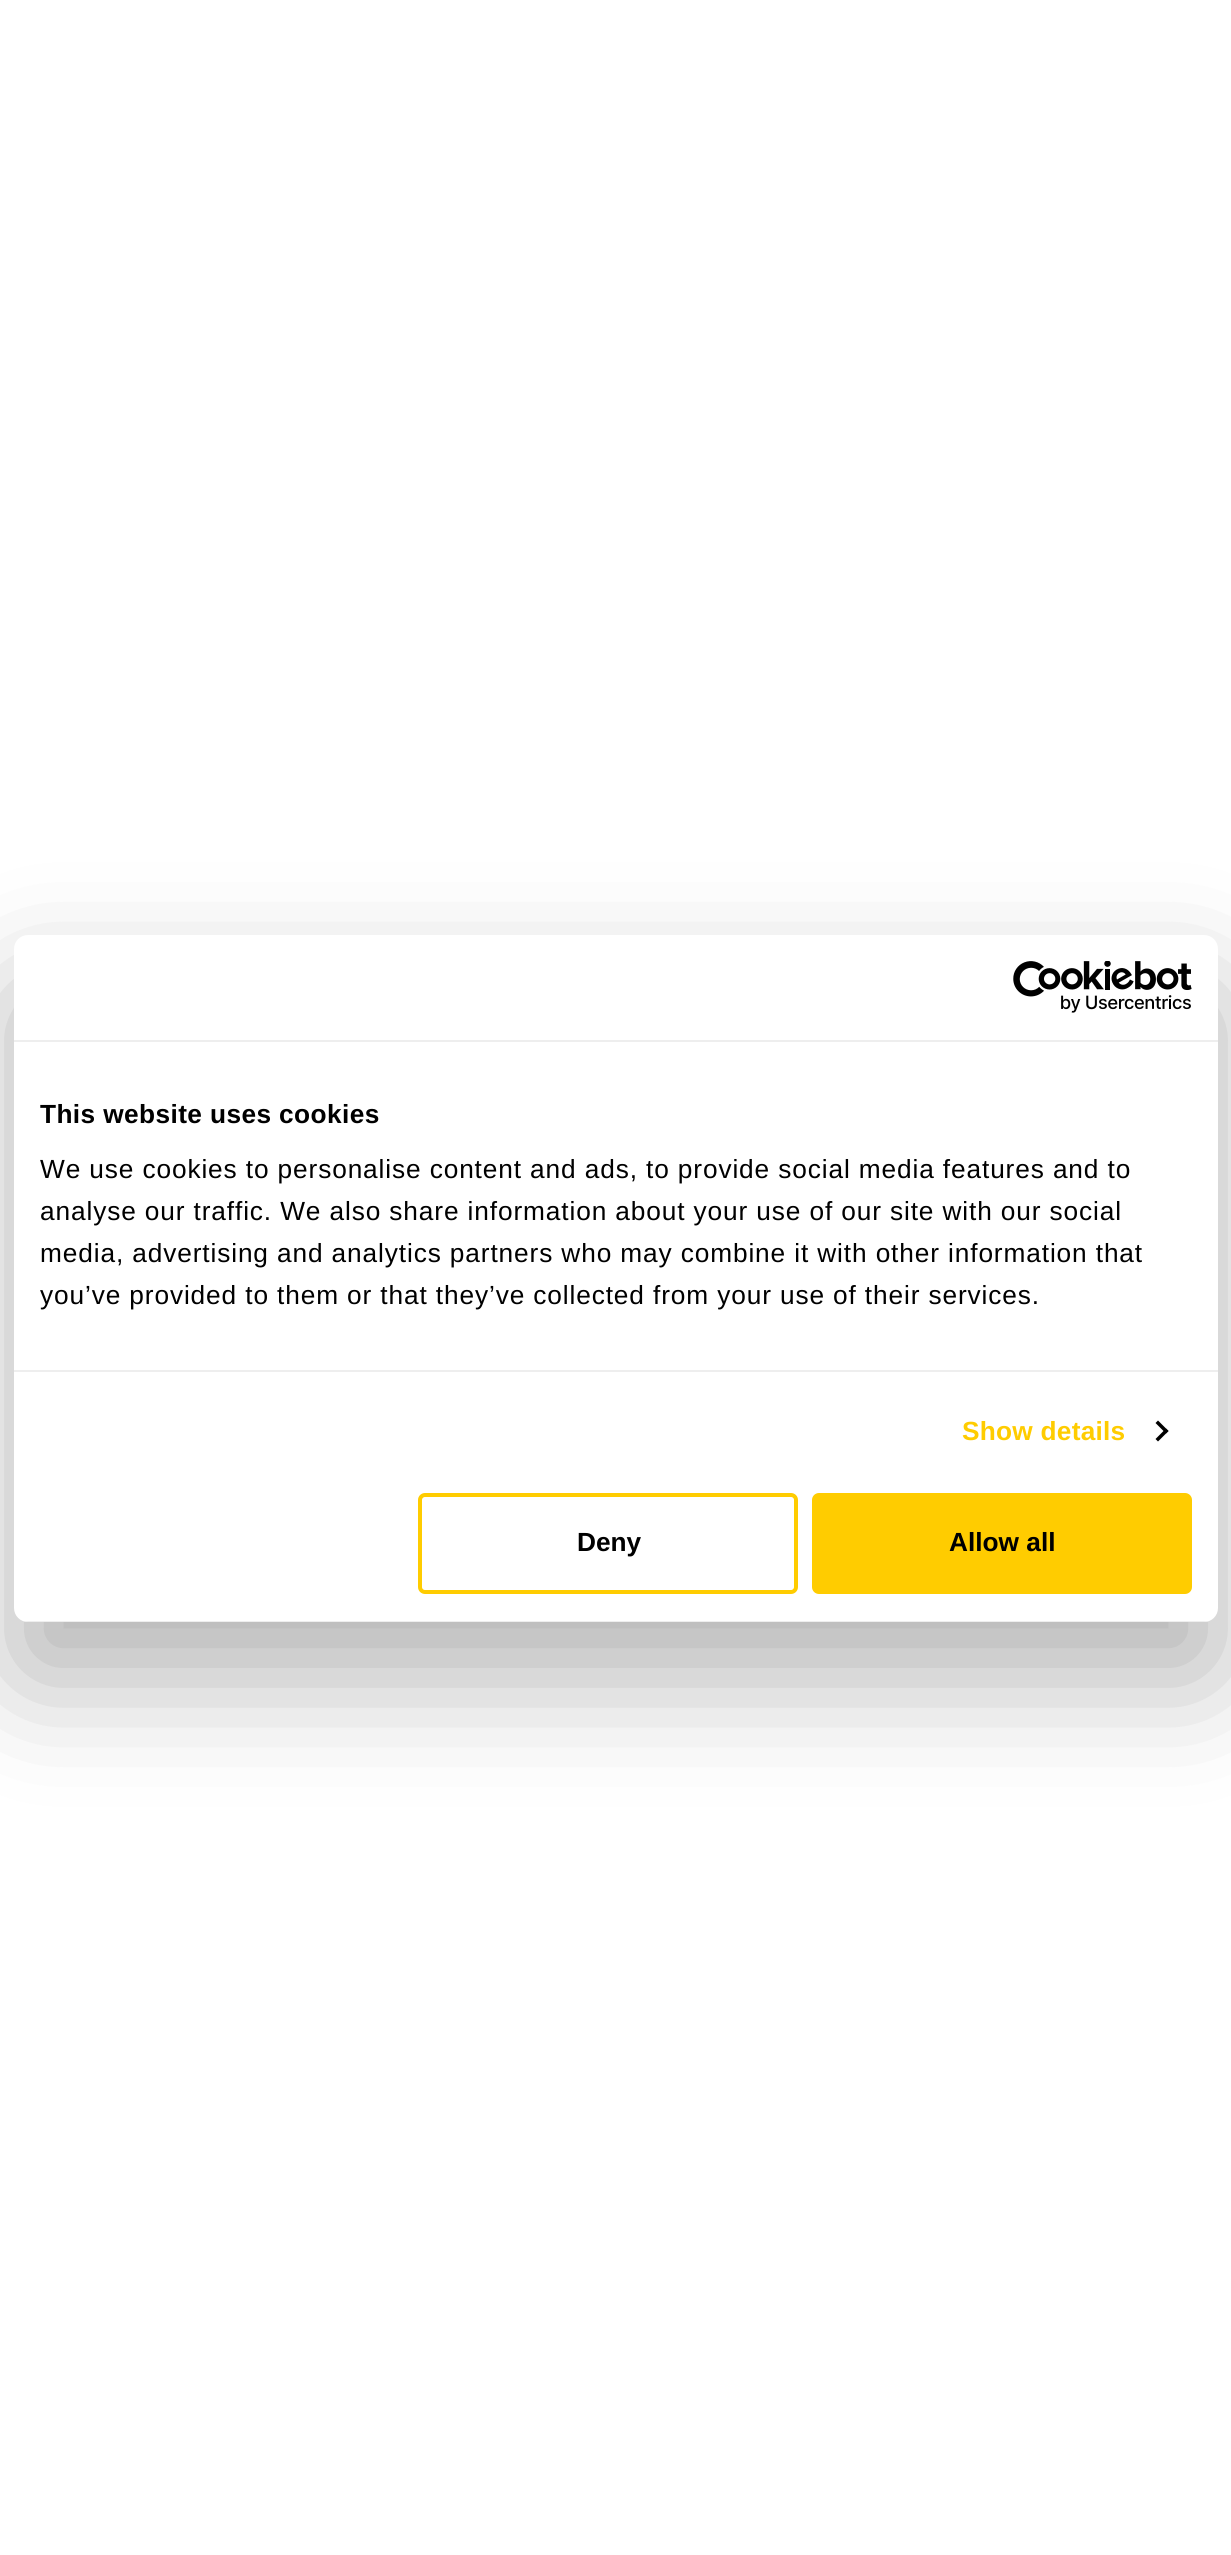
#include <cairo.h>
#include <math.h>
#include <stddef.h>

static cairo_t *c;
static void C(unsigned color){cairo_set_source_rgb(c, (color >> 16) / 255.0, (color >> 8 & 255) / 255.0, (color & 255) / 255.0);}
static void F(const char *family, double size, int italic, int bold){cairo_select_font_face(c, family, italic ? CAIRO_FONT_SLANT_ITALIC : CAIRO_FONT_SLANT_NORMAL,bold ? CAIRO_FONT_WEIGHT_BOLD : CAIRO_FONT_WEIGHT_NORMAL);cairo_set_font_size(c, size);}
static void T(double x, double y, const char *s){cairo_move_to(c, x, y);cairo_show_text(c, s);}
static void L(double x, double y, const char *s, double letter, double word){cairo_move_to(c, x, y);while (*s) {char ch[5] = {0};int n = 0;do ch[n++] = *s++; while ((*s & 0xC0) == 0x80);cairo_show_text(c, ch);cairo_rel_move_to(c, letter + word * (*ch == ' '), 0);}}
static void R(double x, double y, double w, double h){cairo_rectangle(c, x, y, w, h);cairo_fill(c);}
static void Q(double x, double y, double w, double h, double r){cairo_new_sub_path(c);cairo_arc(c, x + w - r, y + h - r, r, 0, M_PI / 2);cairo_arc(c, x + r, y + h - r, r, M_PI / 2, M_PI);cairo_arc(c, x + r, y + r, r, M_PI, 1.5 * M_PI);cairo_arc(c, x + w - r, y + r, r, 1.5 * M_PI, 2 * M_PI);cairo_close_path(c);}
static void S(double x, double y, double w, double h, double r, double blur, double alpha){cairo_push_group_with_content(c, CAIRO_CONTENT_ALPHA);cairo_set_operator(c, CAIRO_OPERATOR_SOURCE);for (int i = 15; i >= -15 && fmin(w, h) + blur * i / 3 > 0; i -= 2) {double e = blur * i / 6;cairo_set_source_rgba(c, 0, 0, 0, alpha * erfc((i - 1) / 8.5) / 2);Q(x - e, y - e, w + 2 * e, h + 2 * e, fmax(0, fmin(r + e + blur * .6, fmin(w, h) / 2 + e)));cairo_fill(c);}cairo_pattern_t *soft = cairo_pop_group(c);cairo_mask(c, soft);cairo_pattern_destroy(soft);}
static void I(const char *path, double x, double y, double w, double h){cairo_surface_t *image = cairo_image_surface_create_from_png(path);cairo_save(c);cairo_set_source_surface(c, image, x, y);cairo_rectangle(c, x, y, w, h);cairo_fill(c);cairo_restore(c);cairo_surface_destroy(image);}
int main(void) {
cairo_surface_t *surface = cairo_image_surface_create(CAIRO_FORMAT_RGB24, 1231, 2555);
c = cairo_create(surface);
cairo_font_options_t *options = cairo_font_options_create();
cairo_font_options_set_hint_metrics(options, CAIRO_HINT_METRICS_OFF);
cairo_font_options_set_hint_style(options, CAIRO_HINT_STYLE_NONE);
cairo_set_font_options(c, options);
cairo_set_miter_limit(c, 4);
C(0xffffff);
cairo_paint(c);
C(0x000000);
S(14,991,1204,687,14,59.5,.3);
C(0xffffff);
Q(14,935,1204,687,14);
cairo_fill(c);
C(0xeeeeee);
R(14,1040,1204,2);
I("1.png",1013,961,179,52);
R(14,1370,1204,2);
F("Liberation Sans",26.25,0,1);
C(0x000000);
L(40,1123,"This website uses cookies",.4,0);
F("Liberation Sans",26.25,0,0);
L(40,1178,"We use cookies to personalise content and ads, to provide social media features and to",.88,0);
L(40,1220,"analyse our traffic. We also share information about your use of our site with our social",.88,0);
L(40,1262,"media, advertising and analytics partners who may combine it with other information that",.88,0);
L(40,1304,"you’ve provided to them or that they’ve collected from your use of their services.",.88,0);
F("Liberation Sans",26.25,0,1);
C(0xffcc00);
L(962,1440,"Show details",.25,0);
C(0x000000);
cairo_new_path(c);
cairo_move_to(c,1158,1420.5);
cairo_line_to(c,1168.5,1431);
cairo_line_to(c,1166,1433.5);
cairo_line_to(c,1155.5,1423);
cairo_close_path(c);
cairo_fill(c);
cairo_new_path(c);
cairo_move_to(c,1166,1428.5);
cairo_line_to(c,1168.5,1431);
cairo_line_to(c,1158,1441.5);
cairo_line_to(c,1155.5,1439);
cairo_close_path(c);
cairo_fill(c);
cairo_save(c);
Q(14,935,1204,687,14);
cairo_clip(c);
C(0xeeeeee);
R(23,1621,1186,1);
cairo_restore(c);
Q(420,1495,376,97,5);
C(0xffcc00);
cairo_set_line_width(c,4);
cairo_stroke(c);
C(0x000000);
T(577,1551,"Deny");
C(0xffcc00);
Q(814,1495,376,97,5);
cairo_fill_preserve(c);
cairo_stroke(c);
C(0x000000);
T(949,1551,"Allow all");
cairo_surface_write_to_png(surface, "o.png");
cairo_font_options_destroy(options);
cairo_destroy(c);
cairo_surface_destroy(surface);
return 0;
}
